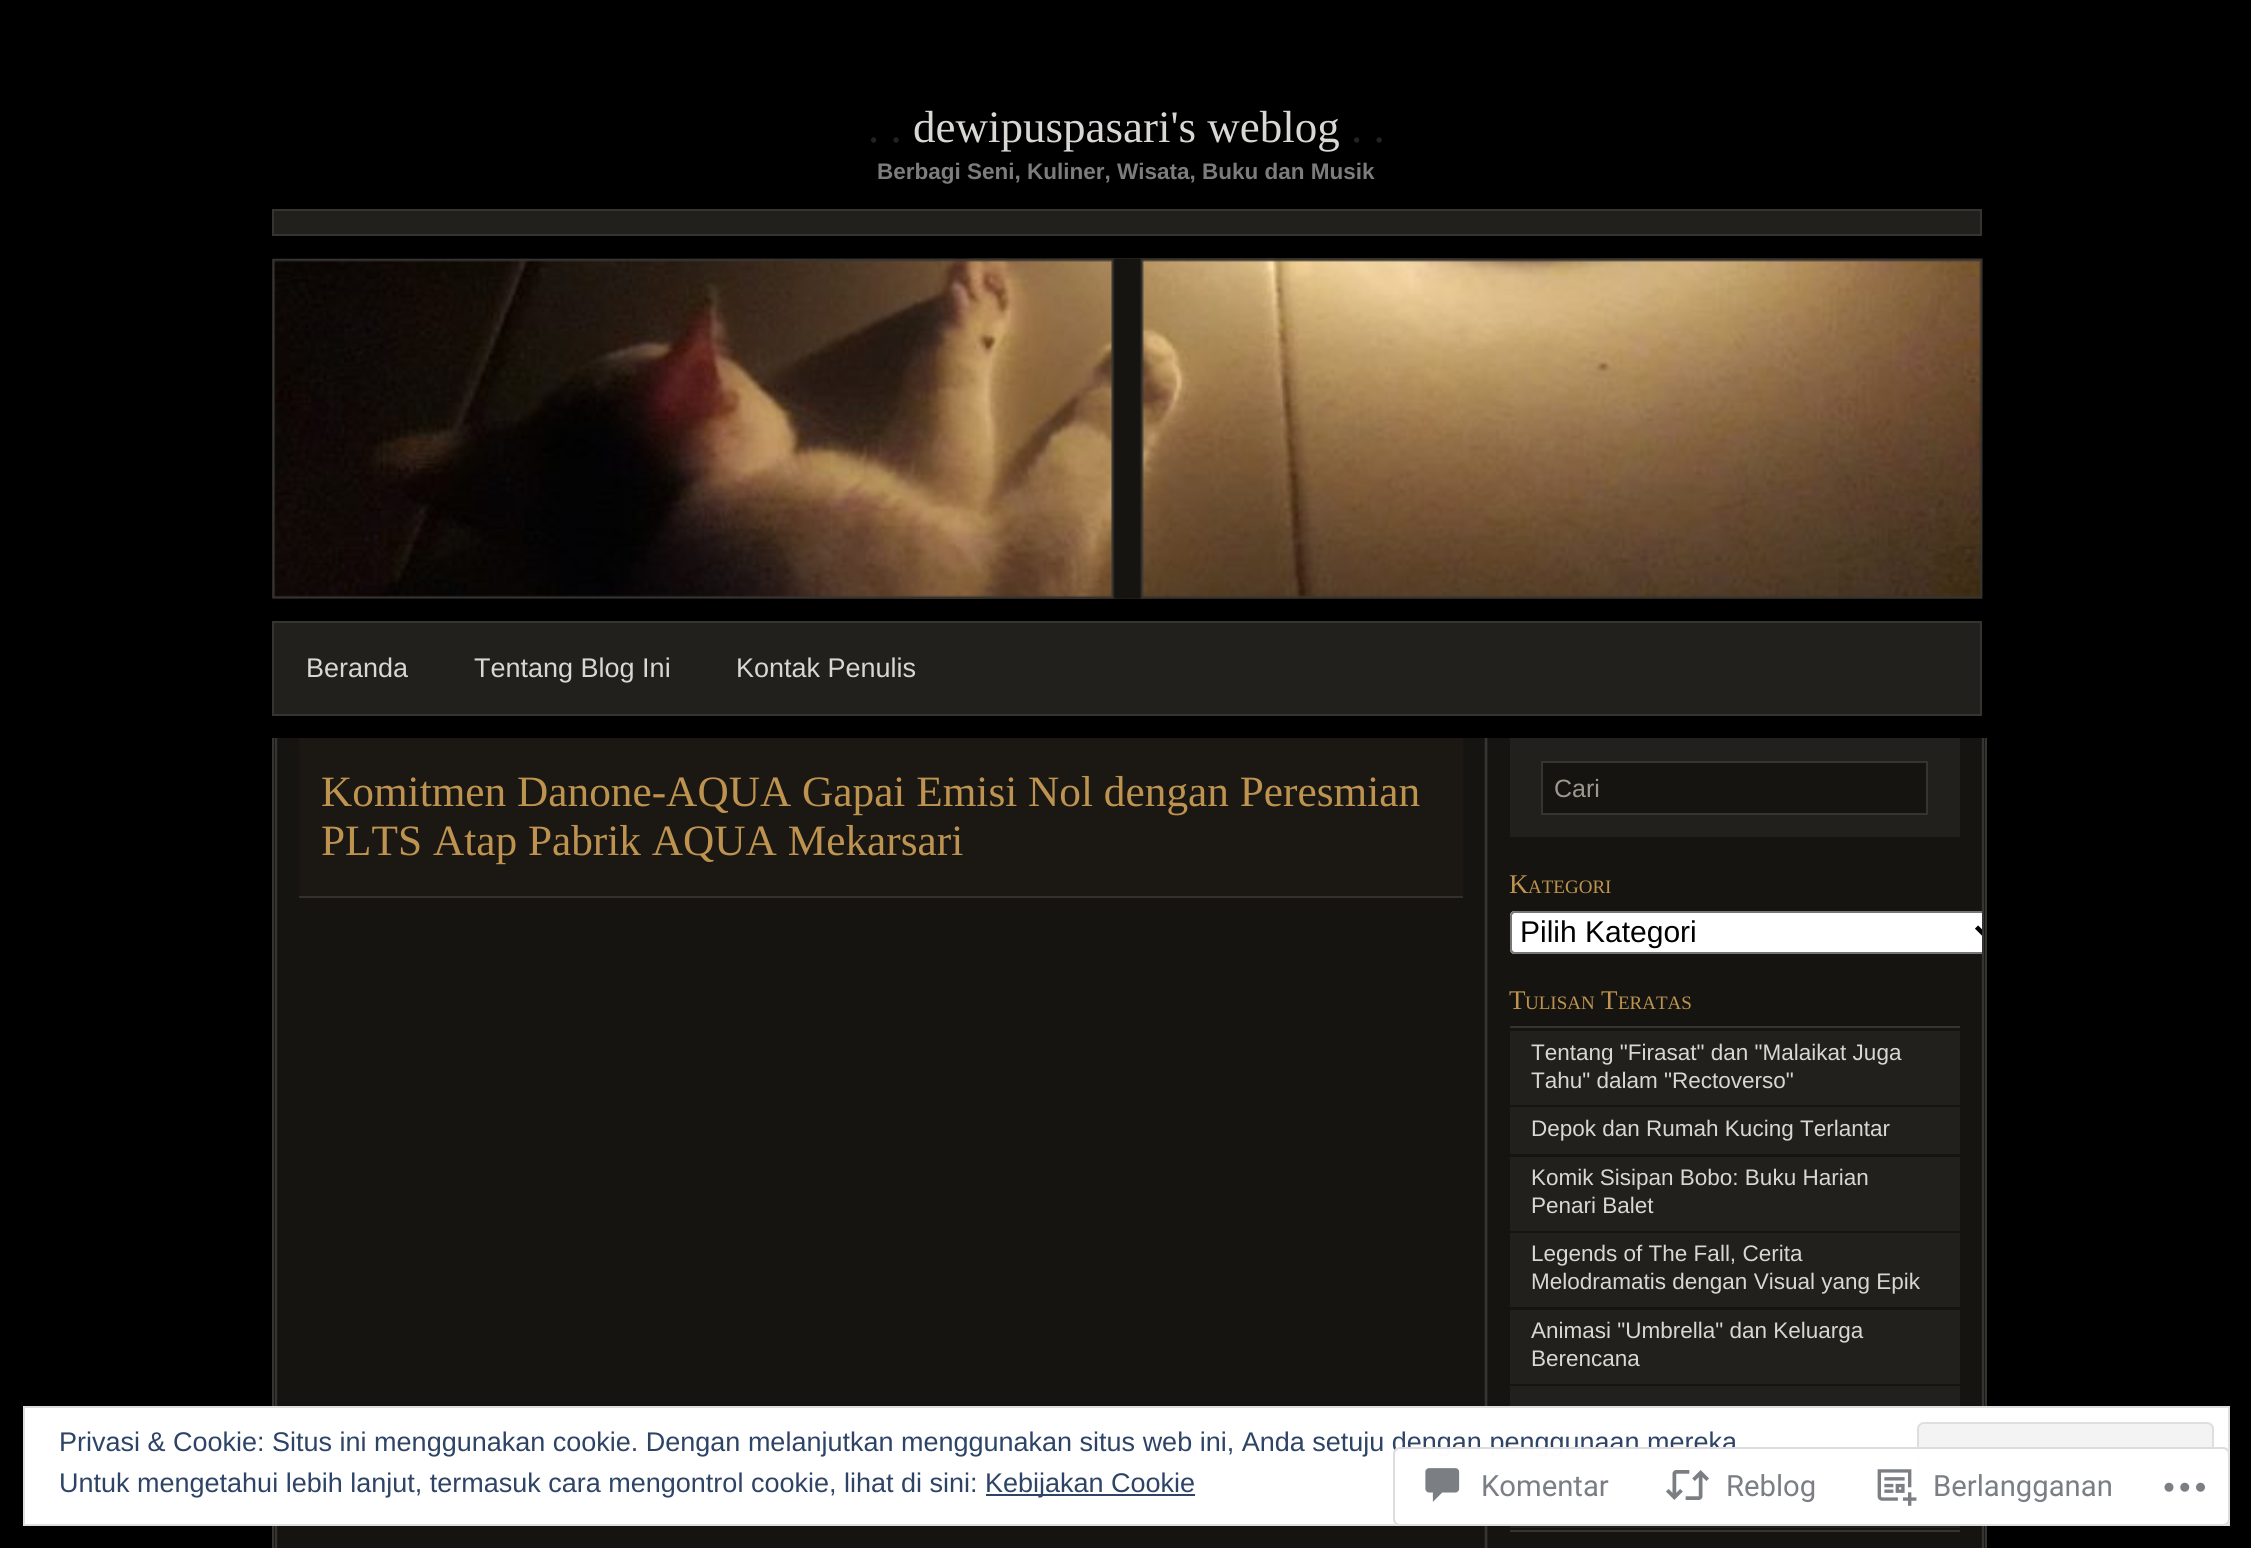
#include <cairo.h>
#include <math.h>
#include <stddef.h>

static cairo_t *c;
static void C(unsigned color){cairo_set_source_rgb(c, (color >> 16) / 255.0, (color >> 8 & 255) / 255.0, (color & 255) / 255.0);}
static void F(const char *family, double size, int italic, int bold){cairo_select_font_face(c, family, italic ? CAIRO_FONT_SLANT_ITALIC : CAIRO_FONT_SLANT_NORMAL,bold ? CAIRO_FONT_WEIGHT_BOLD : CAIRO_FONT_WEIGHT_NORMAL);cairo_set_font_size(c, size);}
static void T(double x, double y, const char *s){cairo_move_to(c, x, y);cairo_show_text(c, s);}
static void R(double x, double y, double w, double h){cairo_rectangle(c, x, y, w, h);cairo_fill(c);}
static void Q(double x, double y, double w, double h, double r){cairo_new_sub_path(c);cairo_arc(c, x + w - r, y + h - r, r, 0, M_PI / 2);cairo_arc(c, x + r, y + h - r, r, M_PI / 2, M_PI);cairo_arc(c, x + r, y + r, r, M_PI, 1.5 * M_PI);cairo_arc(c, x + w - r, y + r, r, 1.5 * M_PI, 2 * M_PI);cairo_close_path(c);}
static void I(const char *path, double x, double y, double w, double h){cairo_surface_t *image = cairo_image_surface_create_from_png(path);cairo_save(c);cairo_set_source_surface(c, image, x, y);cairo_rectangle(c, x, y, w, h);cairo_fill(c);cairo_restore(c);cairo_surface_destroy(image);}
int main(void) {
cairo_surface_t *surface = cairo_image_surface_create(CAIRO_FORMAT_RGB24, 2251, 1548);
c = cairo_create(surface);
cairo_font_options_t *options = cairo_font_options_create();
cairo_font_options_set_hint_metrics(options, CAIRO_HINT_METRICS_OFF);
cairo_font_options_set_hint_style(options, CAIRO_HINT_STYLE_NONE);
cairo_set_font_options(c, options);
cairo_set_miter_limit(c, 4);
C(0x000000);
cairo_paint(c);
F("Liberation Serif",45,0,0);
C(0x222222);
T(868,142,". .");
C(0xd8d7d3);
T(913,142,"dewipuspasari's weblog");
C(0x222222);
T(1351,142,". .");
F("Liberation Sans",22.5,0,1);
C(0x7c7c7c);
T(877,179,"Berbagi Seni, Kuliner, Wisata, Buku dan Musik");
C(0x22201d);
cairo_rectangle(c,273,210,1708,25);
cairo_fill_preserve(c);
C(0x363430);
cairo_stroke(c);
I("1.png",272,258,1711,341);
I("2.png",272,258,1711,341);
C(0x22201d);
cairo_rectangle(c,273,622,1708,93);
cairo_fill_preserve(c);
C(0x363430);
cairo_stroke(c);
F("Liberation Sans",27,0,0);
C(0xd8d7d3);
T(306,677,"Beranda");
T(474,677,"Tentang Blog Ini");
T(736,677,"Kontak Penulis");
I("3.png",274,738,1711,810);
C(0x363430);
R(1985,738,2,810);
R(272,738,2,810);
R(1485,738,2,810);
R(276,738,1,810);
C(0x1b1814);
R(299,738,1164,158);
C(0x35302a);
R(299,896,1164,2);
F("Liberation Serif",43.3,0,0);
C(0xbd934f);
T(321,806,"Komitmen Danone-AQUA Gapai Emisi Nol dengan Peresmian");
T(321,855,"PLTS Atap Pabrik AQUA Mekarsari");
C(0x363430);
R(1982,738,1,810);
C(0x22201d);
R(1510,738,450,99);
C(0x161410);
cairo_rectangle(c,1542,762,385,52);
cairo_fill_preserve(c);
C(0x363430);
cairo_stroke(c);
F("Liberation Sans",25,0,0);
C(0x9c9890);
T(1554,797,"Cari");
F("Liberation Serif",27,0,0);
C(0xbd934f);
T(1509,893,"K");
F("Liberation Serif",19,0,0);
T(1528,893,"ATEGORI");
C(0xffffff);
cairo_new_path(c);
cairo_move_to(c,1515,911);
cairo_line_to(c,1982,911);
cairo_line_to(c,1982,954);
cairo_line_to(c,1515,954);
cairo_curve_to(c,1512,954,1510,952,1510,949);
cairo_line_to(c,1510,916);
cairo_curve_to(c,1510,913,1512,911,1515,911);
cairo_close_path(c);
cairo_fill(c);
cairo_save(c);
cairo_rectangle(c,1487,738,495,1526);
cairo_clip(c);
Q(1511,912,495,41,4);
C(0x767676);
cairo_stroke(c);
cairo_new_path(c);
cairo_move_to(c,1976.5,927);
cairo_line_to(c,1985.5,936);
cairo_line_to(c,1994.5,927);
C(0x000000);
cairo_set_line_width(c,4.5);
cairo_stroke(c);
cairo_restore(c);
F("Liberation Sans",30,0,0);
C(0x000000);
T(1520,942,"Pilih Kategori");
F("Liberation Serif",27,0,0);
C(0xbd934f);
T(1509,1009,"T");
F("Liberation Serif",19,0,0);
T(1525,1009,"ULISAN");
F("Liberation Serif",27,0,0);
T(1601,1009,"T");
F("Liberation Serif",19,0,0);
T(1618,1009,"ERATAS");
C(0x363430);
R(1510,1026,450,2);
R(1510,1530,450,2);
C(0x22201d);
R(1510,1031,450,74);
F("Liberation Sans",22.5,0,0);
C(0xd8d7d3);
T(1531,1060,"Tentang \"Firasat\" dan \"Malaikat Juga");
T(1531,1088,"Tahu\" dalam \"Rectoverso\"");
C(0x22201d);
R(1510,1107,450,47);
C(0xd8d7d3);
T(1531,1136,"Depok dan Rumah Kucing Terlantar");
C(0x22201d);
R(1510,1157,450,74);
C(0xd8d7d3);
T(1531,1185,"Komik Sisipan Bobo: Buku Harian");
T(1531,1213,"Penari Balet");
C(0x22201d);
R(1510,1233,450,74);
C(0xd8d7d3);
T(1531,1261,"Legends of The Fall, Cerita");
T(1531,1289,"Melodramatis dengan Visual yang Epik");
C(0x22201d);
R(1510,1310,450,74);
C(0xd8d7d3);
T(1531,1338,"Animasi \"Umbrella\" dan Keluarga");
T(1531,1366,"Berencana");
C(0x22201d);
R(1510,1386,450,20);
R(1510,1526,450,2);
C(0xffffff);
cairo_rectangle(c,24,1407,2205,118);
cairo_fill_preserve(c);
C(0xdedede);
cairo_stroke(c);
F("Liberation Sans",27,0,0);
C(0x2e4467);
T(59,1451,"Privasi & Cookie: Situs ini menggunakan cookie. Dengan melanjutkan menggunakan situs web ini, Anda setuju dengan penggunaan mereka");
C(0xf3f3f3);
Q(1918,1423,295,86,6);
cairo_fill_preserve(c);
C(0xdedede);
cairo_stroke(c);
C(0x2e4467);
T(59,1492,"Untuk mengetahui lebih lanjut, termasuk cara mengontrol cookie, lihat di sini:");
R(986,1494,209,2);
T(985,1492,"Kebijakan Cookie");
cairo_set_source_rgba(c,1,1,1,0.98);
Q(1393,1447,837,79,7);
cairo_fill(c);
Q(1394,1448,835,77,6);
cairo_set_source_rgba(c,0.863,0.863,0.871,0.98);
cairo_stroke(c);
I("4.png",1425,1468,35,34);
F("Roboto",29.25,0,0);
C(0x7b7f85);
T(1481,1496,"Komentar");
I("5.png",1666,1470,43,30);
T(1726,1496,"Reblog");
I("6.png",1877,1469,40,37);
T(1933,1496,"Berlangganan");
I("7.png",2164,1482,41,10);
cairo_surface_write_to_png(surface, "o.png");
cairo_font_options_destroy(options);
cairo_destroy(c);
cairo_surface_destroy(surface);
return 0;
}
